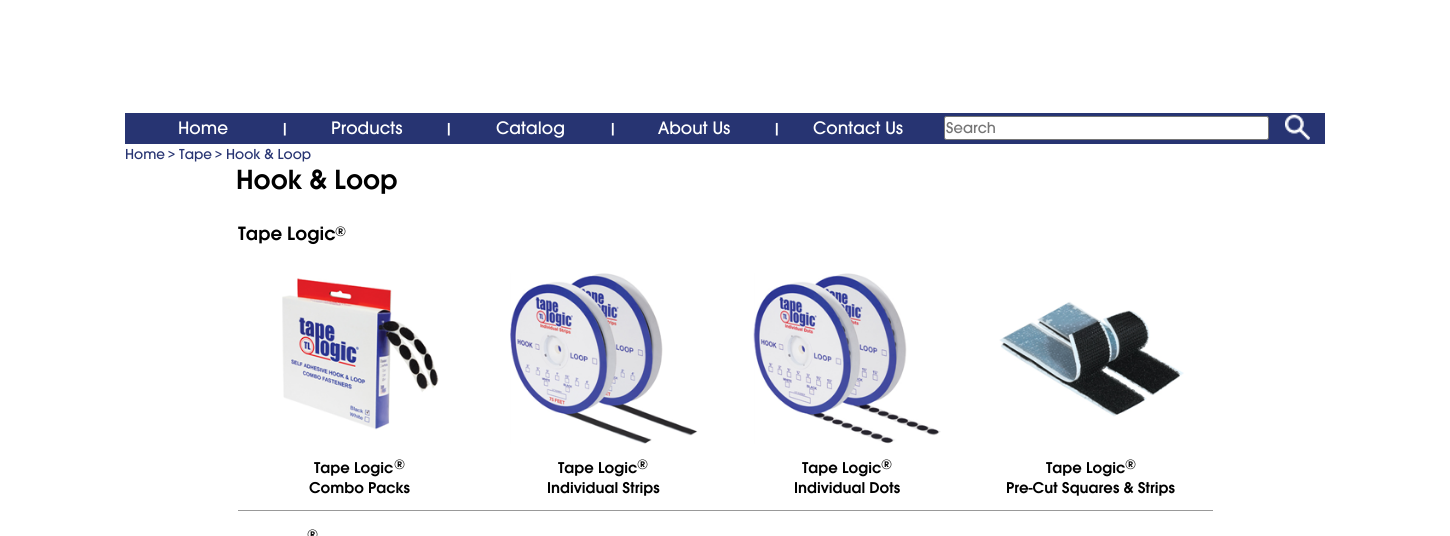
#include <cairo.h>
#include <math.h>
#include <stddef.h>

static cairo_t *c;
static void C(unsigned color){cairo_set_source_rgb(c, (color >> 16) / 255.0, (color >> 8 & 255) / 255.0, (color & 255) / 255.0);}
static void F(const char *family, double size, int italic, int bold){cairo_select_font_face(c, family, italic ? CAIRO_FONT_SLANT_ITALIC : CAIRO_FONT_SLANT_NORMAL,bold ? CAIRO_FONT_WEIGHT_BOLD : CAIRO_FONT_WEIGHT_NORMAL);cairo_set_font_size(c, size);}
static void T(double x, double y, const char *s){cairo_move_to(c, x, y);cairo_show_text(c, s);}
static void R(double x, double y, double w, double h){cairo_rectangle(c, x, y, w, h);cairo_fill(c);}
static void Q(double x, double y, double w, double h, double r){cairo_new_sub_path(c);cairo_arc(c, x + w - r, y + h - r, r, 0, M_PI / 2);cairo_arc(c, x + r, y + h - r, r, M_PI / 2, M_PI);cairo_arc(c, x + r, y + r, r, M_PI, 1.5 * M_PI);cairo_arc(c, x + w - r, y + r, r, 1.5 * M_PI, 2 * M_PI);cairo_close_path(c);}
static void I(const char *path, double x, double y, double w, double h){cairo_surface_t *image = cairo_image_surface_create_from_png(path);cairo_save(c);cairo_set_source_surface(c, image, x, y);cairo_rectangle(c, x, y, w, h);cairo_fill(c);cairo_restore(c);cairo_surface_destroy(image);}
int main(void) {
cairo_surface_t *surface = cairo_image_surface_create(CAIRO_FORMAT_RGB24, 1450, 536);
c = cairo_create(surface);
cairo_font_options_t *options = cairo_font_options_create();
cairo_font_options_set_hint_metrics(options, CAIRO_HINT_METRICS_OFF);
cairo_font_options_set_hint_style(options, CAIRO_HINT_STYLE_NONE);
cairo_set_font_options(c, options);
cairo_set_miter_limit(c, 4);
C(0xffffff);
cairo_paint(c);
C(0x273472);
R(125,113,1200,31);
F("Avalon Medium",18.75,0,0);
C(0xffffff);
T(178,134,"Home");
F("Avalon SemiBold",15,0,0);
T(281,133,"|");
F("Avalon Medium",18.75,0,0);
T(331,134,"Products");
F("Avalon SemiBold",15,0,0);
T(445,133,"|");
F("Avalon Medium",18.75,0,0);
T(496,134,"Catalog");
F("Avalon SemiBold",15,0,0);
T(609,133,"|");
F("Avalon Medium",18.75,0,0);
T(658,134,"About Us");
F("Avalon SemiBold",15,0,0);
T(773,133,"|");
F("Avalon Medium",18.75,0,0);
T(813,134,"Contact Us");
Q(944.5,116.5,324,23,2);
cairo_fill_preserve(c);
C(0x767676);
cairo_set_line_width(c,1);
cairo_stroke(c);
F("Avalon Medium",16.25,0,0);
C(0x757575);
T(946,133,"Search");
I("1.png",1285,114,25,26);
F("Avalon Medium",15,0,0);
C(0x273472);
T(125,159,"Home");
F("Avalon Medium",14,0,0);
T(168,159,">");
F("Avalon Medium",15,0,0);
T(179,159,"Tape");
F("Avalon Medium",14,0,0);
T(215,159,">");
F("Avalon Medium",15,0,0);
T(226,159,"Hook & Loop");
F("Avalon SemiBold",28.75,0,0);
C(0x000000);
T(236,189,"Hook & Loop");
F("Avalon SemiBold",20,0,0);
T(238,240,"Tape Logic");
F("Avalon SemiBold",14,0,0);
T(335,236,"®");
I("2.png",282,278,157,152);
F("Avalon SemiBold",16.25,0,0);
T(314,473,"Tape Logic");
F("Avalon SemiBold",14,0,0);
T(394,469,"®");
F("Avalon SemiBold",16.25,0,0);
T(309,493,"Combo Packs");
I("3.png",510,273,188,171);
T(558,473,"Tape Logic");
F("Avalon SemiBold",14,0,0);
T(637,469,"®");
F("Avalon SemiBold",16.25,0,0);
T(547,493,"Individual Strips");
I("4.png",753,273,188,171);
T(802,473,"Tape Logic");
F("Avalon SemiBold",14,0,0);
T(881,469,"®");
F("Avalon SemiBold",16.25,0,0);
T(794,493,"Individual Dots");
I("5.png",999,301,185,116);
T(1046,473,"Tape Logic");
F("Avalon SemiBold",14,0,0);
T(1125,469,"®");
F("Avalon SemiBold",16.25,0,0);
T(1006,493,"Pre-Cut Squares & Strips");
C(0x999999);
R(238,510,975,1);
F("Avalon SemiBold",14,0,0);
C(0x000000);
T(307,539,"®");
cairo_surface_write_to_png(surface, "o.png");
cairo_font_options_destroy(options);
cairo_destroy(c);
cairo_surface_destroy(surface);
return 0;
}
